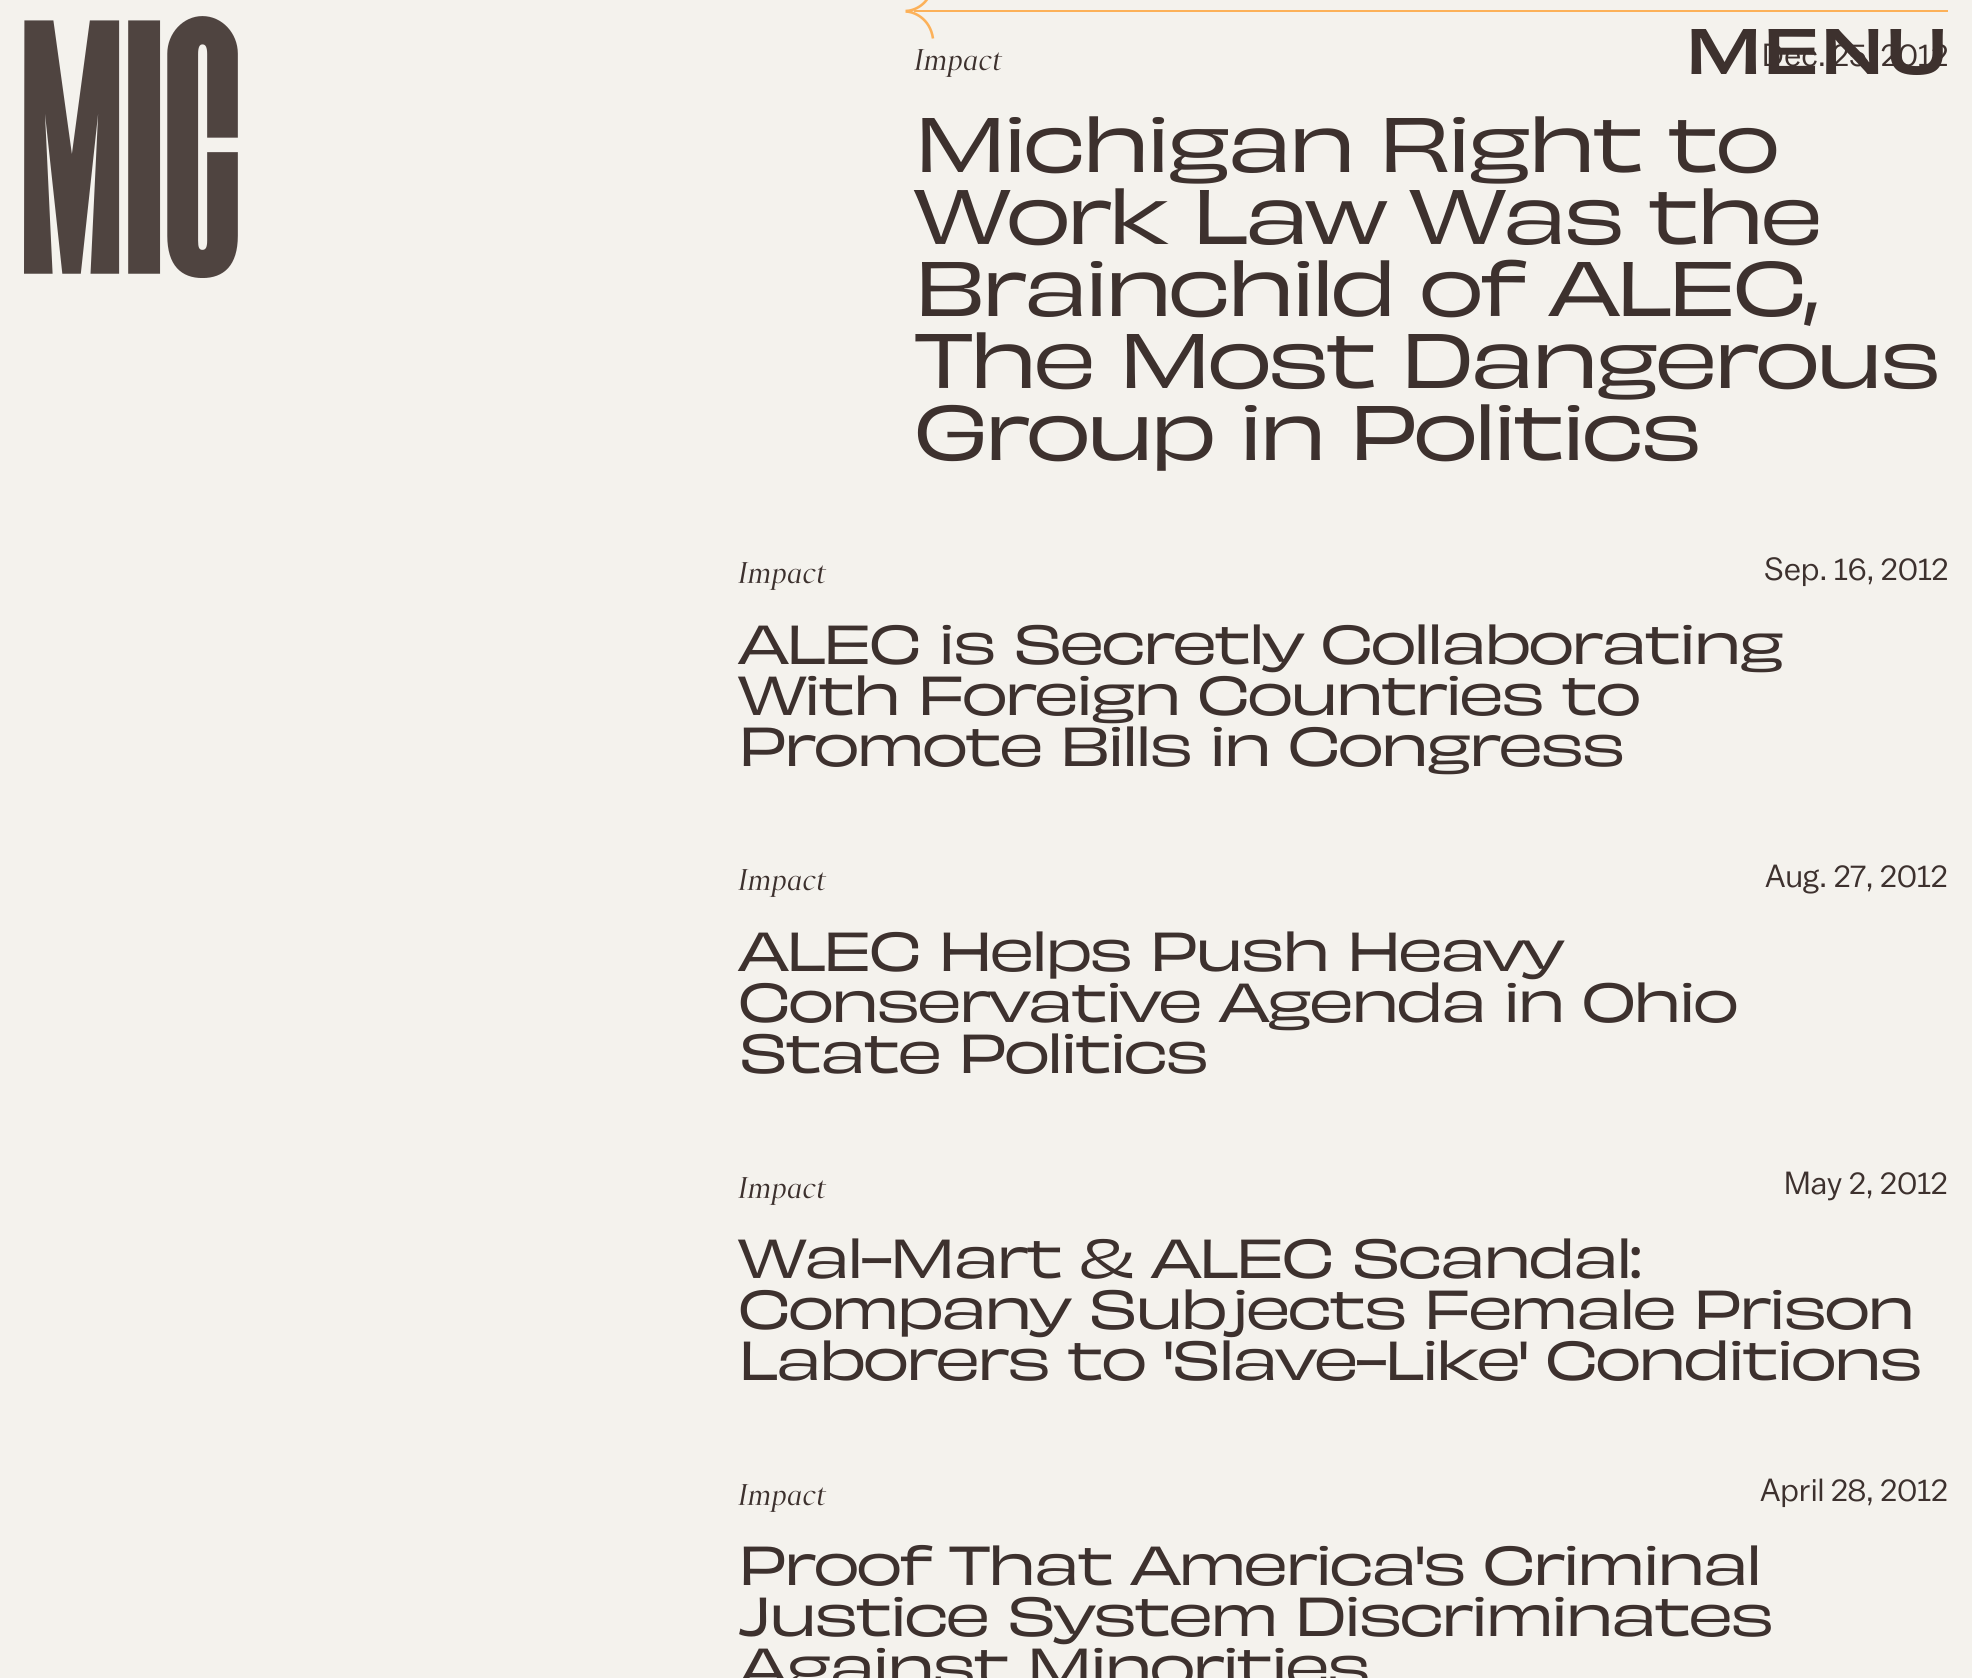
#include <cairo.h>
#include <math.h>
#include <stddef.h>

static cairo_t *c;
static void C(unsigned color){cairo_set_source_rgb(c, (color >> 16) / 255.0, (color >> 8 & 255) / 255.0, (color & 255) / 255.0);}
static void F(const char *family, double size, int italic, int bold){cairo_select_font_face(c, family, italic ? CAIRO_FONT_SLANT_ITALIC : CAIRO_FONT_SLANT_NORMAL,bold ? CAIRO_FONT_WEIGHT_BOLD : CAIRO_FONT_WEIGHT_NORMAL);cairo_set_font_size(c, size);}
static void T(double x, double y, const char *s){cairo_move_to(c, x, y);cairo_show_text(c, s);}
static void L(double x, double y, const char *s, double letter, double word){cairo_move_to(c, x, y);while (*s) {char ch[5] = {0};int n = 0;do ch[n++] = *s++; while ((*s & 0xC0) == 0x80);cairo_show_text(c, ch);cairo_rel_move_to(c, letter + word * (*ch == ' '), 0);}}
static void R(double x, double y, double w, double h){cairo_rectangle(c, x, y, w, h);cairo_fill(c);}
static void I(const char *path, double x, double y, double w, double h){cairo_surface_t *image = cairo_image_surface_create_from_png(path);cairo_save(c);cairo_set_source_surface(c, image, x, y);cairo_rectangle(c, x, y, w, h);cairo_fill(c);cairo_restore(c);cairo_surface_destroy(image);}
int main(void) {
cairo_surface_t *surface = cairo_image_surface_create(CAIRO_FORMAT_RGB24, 1972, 1678);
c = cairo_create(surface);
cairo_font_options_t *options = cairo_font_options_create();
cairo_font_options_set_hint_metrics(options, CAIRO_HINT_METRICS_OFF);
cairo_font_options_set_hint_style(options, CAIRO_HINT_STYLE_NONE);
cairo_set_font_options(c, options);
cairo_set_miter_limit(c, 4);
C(0xf4f2ed);
cairo_paint(c);
I("1.png",24,16,214,262);
F("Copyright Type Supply",32,0,0);
C(0x3d312e);
T(1762,66,"Dec. 25, 2012");
F("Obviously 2 SemiBold",60,0,0);
L(1685,74,"MENU",-.5,0);
C(0xfcb159);
R(914,10,1034,2);
cairo_new_path(c);
cairo_move_to(c,905.5,11.5);
cairo_curve_to(c,913.5,11.5,930,18,933,38.5);
cairo_move_to(c,933,-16);
cairo_curve_to(c,930,5,913.5,11,905.5,11);
cairo_set_line_width(c,2.6);
cairo_stroke(c);
F("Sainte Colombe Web",28,1,0);
C(0x3d312e);
L(914,70,"Impact",.25,0);
F("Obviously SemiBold",72,0,0);
L(914,172,"Michigan Right to",-4.3,0);
L(914,244,"Work Law Was the",-4.3,0);
L(914,316,"Brainchild of ALEC,",-4.3,0);
L(914,388,"The Most Dangerous",-4.3,0);
L(914,460,"Group in Politics",-4.3,0);
F("Sainte Colombe Web",28,1,0);
L(738,583,"Impact",.25,0);
F("Copyright Type Supply",32,0,0);
T(1764,580,"Sep. 16, 2012");
F("Obviously SemiBold",51.2,0,0);
L(738,664,"ALEC is Secretly Collaborating",-3.05,0);
L(738,715,"With Foreign Countries to",-3.05,0);
L(738,766,"Promote Bills in Congress",-3.05,0);
F("Sainte Colombe Web",28,1,0);
L(738,890,"Impact",.25,0);
F("Copyright Type Supply",32,0,0);
T(1765,887,"Aug. 27, 2012");
F("Obviously SemiBold",51.2,0,0);
L(738,971,"ALEC Helps Push Heavy",-3.05,0);
L(738,1022,"Conservative Agenda in Ohio",-3.05,0);
L(738,1073,"State Politics",-3.05,0);
F("Sainte Colombe Web",28,1,0);
L(738,1198,"Impact",.25,0);
F("Copyright Type Supply",32,0,0);
T(1784,1194,"May 2, 2012");
F("Obviously SemiBold",51.2,0,0);
L(738,1278,"Wal-Mart & ALEC Scandal:",-3.05,0);
L(738,1329,"Company Subjects Female Prison",-3.05,0);
L(738,1380,"Laborers to 'Slave-Like' Conditions",-3.05,0);
F("Sainte Colombe Web",28,1,0);
L(738,1505,"Impact",.25,0);
F("Copyright Type Supply",32,0,0);
T(1760,1501,"April 28, 2012");
F("Obviously SemiBold",51.2,0,0);
L(738,1585,"Proof That America's Criminal",-3.05,0);
L(738,1636,"Justice System Discriminates",-3.05,0);
L(738,1687,"Against Minorities",-3.05,0);
cairo_surface_write_to_png(surface, "o.png");
cairo_font_options_destroy(options);
cairo_destroy(c);
cairo_surface_destroy(surface);
return 0;
}
